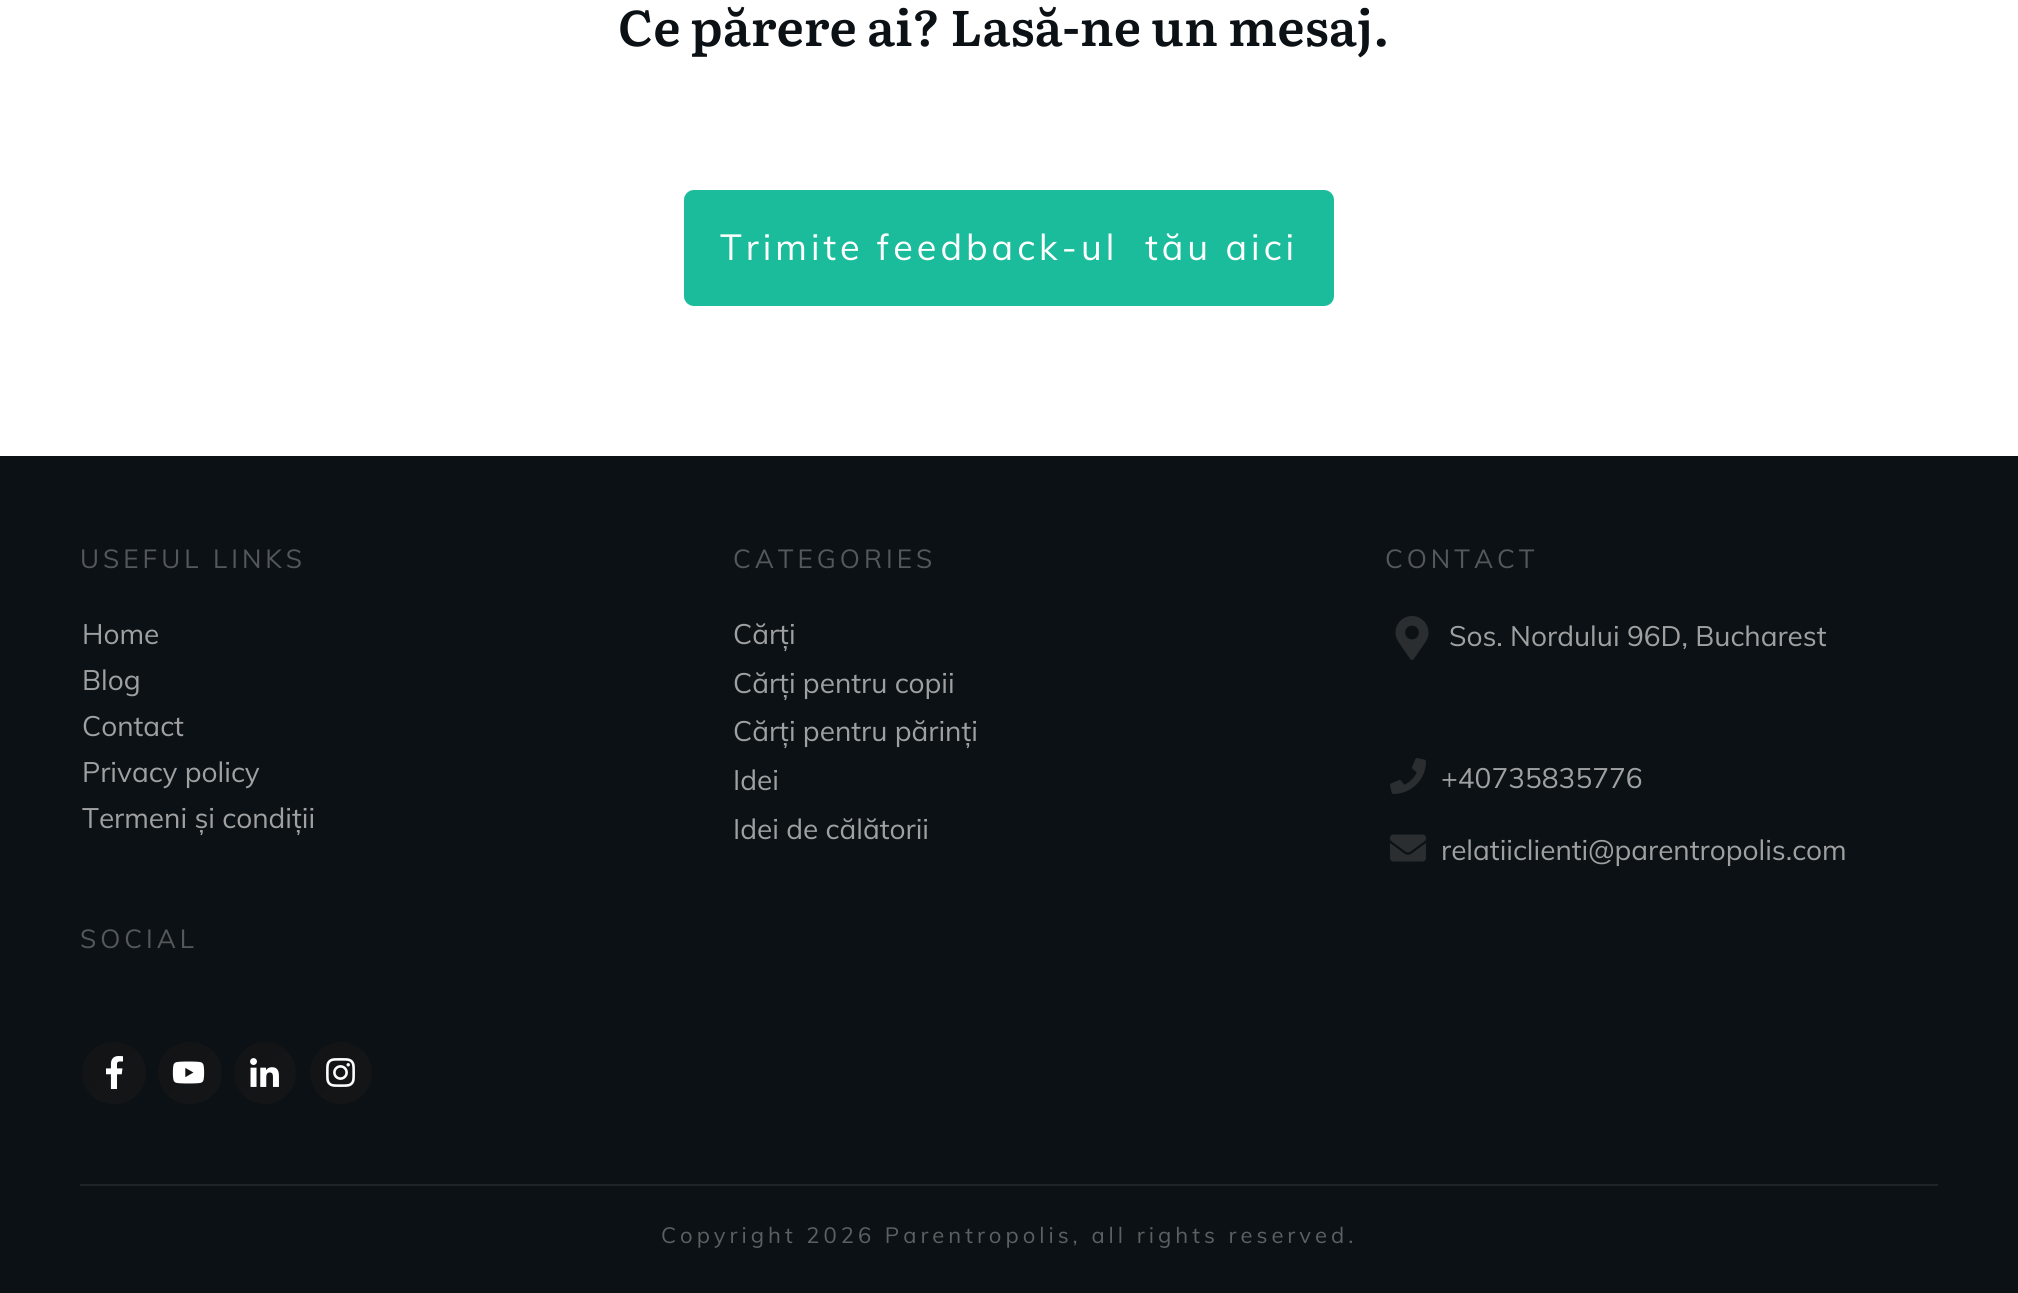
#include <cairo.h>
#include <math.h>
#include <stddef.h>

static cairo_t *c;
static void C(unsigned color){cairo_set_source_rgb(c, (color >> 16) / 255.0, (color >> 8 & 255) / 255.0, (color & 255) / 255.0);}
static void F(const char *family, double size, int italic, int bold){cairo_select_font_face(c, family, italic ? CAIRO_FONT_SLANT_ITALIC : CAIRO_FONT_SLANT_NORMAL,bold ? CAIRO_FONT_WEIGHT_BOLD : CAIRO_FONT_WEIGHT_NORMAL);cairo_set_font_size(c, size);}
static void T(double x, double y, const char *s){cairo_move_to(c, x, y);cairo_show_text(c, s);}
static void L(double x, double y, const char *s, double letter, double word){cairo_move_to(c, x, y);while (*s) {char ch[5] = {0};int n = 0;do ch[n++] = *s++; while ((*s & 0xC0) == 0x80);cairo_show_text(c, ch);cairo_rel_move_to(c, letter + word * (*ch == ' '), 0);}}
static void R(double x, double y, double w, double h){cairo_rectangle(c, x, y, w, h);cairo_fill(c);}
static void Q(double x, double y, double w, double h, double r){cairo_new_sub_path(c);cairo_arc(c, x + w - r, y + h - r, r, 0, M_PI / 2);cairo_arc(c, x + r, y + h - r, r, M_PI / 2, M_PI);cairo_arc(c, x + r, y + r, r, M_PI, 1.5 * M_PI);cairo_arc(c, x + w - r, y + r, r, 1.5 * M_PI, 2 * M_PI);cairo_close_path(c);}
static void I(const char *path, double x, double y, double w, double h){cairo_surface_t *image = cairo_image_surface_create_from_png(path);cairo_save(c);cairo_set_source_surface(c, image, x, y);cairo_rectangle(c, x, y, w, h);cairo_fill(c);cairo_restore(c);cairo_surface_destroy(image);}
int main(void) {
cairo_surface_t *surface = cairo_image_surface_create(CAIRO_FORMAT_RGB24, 2018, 1293);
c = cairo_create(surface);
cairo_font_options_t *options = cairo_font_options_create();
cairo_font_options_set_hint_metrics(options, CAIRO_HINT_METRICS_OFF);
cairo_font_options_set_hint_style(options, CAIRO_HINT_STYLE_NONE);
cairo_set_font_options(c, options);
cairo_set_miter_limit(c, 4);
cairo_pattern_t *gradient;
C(0xffffff);
cairo_paint(c);
F("Literata SemiBold",50,0,0);
C(0x0c1115);
T(618,46,"Ce părere ai? Lasă-ne un mesaj.");
C(0x1abc9c);
Q(684,190,650,116,10);
cairo_fill(c);
F("Muli",36,0,0);
C(0xffffff);
L(720,260,"Trimite feedback-ul  tău aici",4,0);
C(0x0c1115);
R(0,456,2018,837);
C(0x1f2428);
R(80,1184,1858,2);
F("Muli",26,0,0);
C(0x55585b);
L(80,568,"USEFUL LINKS",4,0);
F("Muli",28,0,0);
C(0x9ea0a1);
T(82,644,"Home");
T(82,690,"Blog");
T(82,736,"Contact");
T(82,782,"Privacy policy");
T(82,828,"Termeni și condiții");
F("Muli",26,0,0);
C(0x55585b);
L(733,568,"CATEGORIES",4,0);
F("Muli",28,0,0);
C(0x9ea0a1);
T(733,644,"Cărți");
T(733,693,"Cărți pentru copii");
T(733,741,"Cărți pentru părinți");
T(733,790,"Idei");
T(733,839,"Idei de călătorii");
F("Muli",26,0,0);
C(0x55585b);
L(1385,568,"CONTACT",4,0);
I("1.png",1395,616,34,44);
F("Muli",28,0,0);
C(0x9ea0a1);
T(1449,646,"Sos. Nordului 96D, Bucharest");
I("2.png",1390,758,36,36);
T(1441,788,"+40735835776");
I("3.png",1390,834,36,28);
T(1441,860,"relatiiclienti@parentropolis.com");
F("Muli",26,0,0);
C(0x55585b);
L(80,948,"SOCIAL",4,0);
gradient = cairo_pattern_create_linear(83,1041,145,1105);
cairo_pattern_add_color_stop_rgba(gradient,.5,0.071,0.078,0.086,1);
cairo_pattern_add_color_stop_rgba(gradient,.5,0.078,0.082,0.086,1);
cairo_set_source(c,gradient);
cairo_pattern_destroy(gradient);
Q(82,1042,64,62,31);
cairo_fill(c);
I("4.png",106,1056,17,33);
gradient = cairo_pattern_create_linear(159,1041,221,1105);
cairo_pattern_add_color_stop_rgba(gradient,.5,0.071,0.078,0.086,1);
cairo_pattern_add_color_stop_rgba(gradient,.5,0.078,0.082,0.086,1);
cairo_set_source(c,gradient);
cairo_pattern_destroy(gradient);
Q(158,1042,64,62,31);
cairo_fill(c);
I("5.png",172,1061,33,23);
gradient = cairo_pattern_create_linear(234,1042,296,1104);
cairo_pattern_add_color_stop_rgba(gradient,.5,0.071,0.078,0.086,1);
cairo_pattern_add_color_stop_rgba(gradient,.5,0.078,0.082,0.086,1);
cairo_set_source(c,gradient);
cairo_pattern_destroy(gradient);
cairo_arc(c,265,1073,31,0,2 * M_PI);
cairo_fill(c);
I("6.png",250,1058,29,29);
gradient = cairo_pattern_create_linear(310,1042,372,1104);
cairo_pattern_add_color_stop_rgba(gradient,.5,0.071,0.078,0.086,1);
cairo_pattern_add_color_stop_rgba(gradient,.5,0.078,0.082,0.086,1);
cairo_set_source(c,gradient);
cairo_pattern_destroy(gradient);
cairo_arc(c,341,1073,31,0,2 * M_PI);
cairo_fill(c);
I("7.png",326,1058,29,29);
F("Muli",22,0,0);
C(0x5c6062);
L(661,1243,"Copyright 2026 Parentropolis, all rights reserved.",4,0);
cairo_surface_write_to_png(surface, "o.png");
cairo_font_options_destroy(options);
cairo_destroy(c);
cairo_surface_destroy(surface);
return 0;
}
